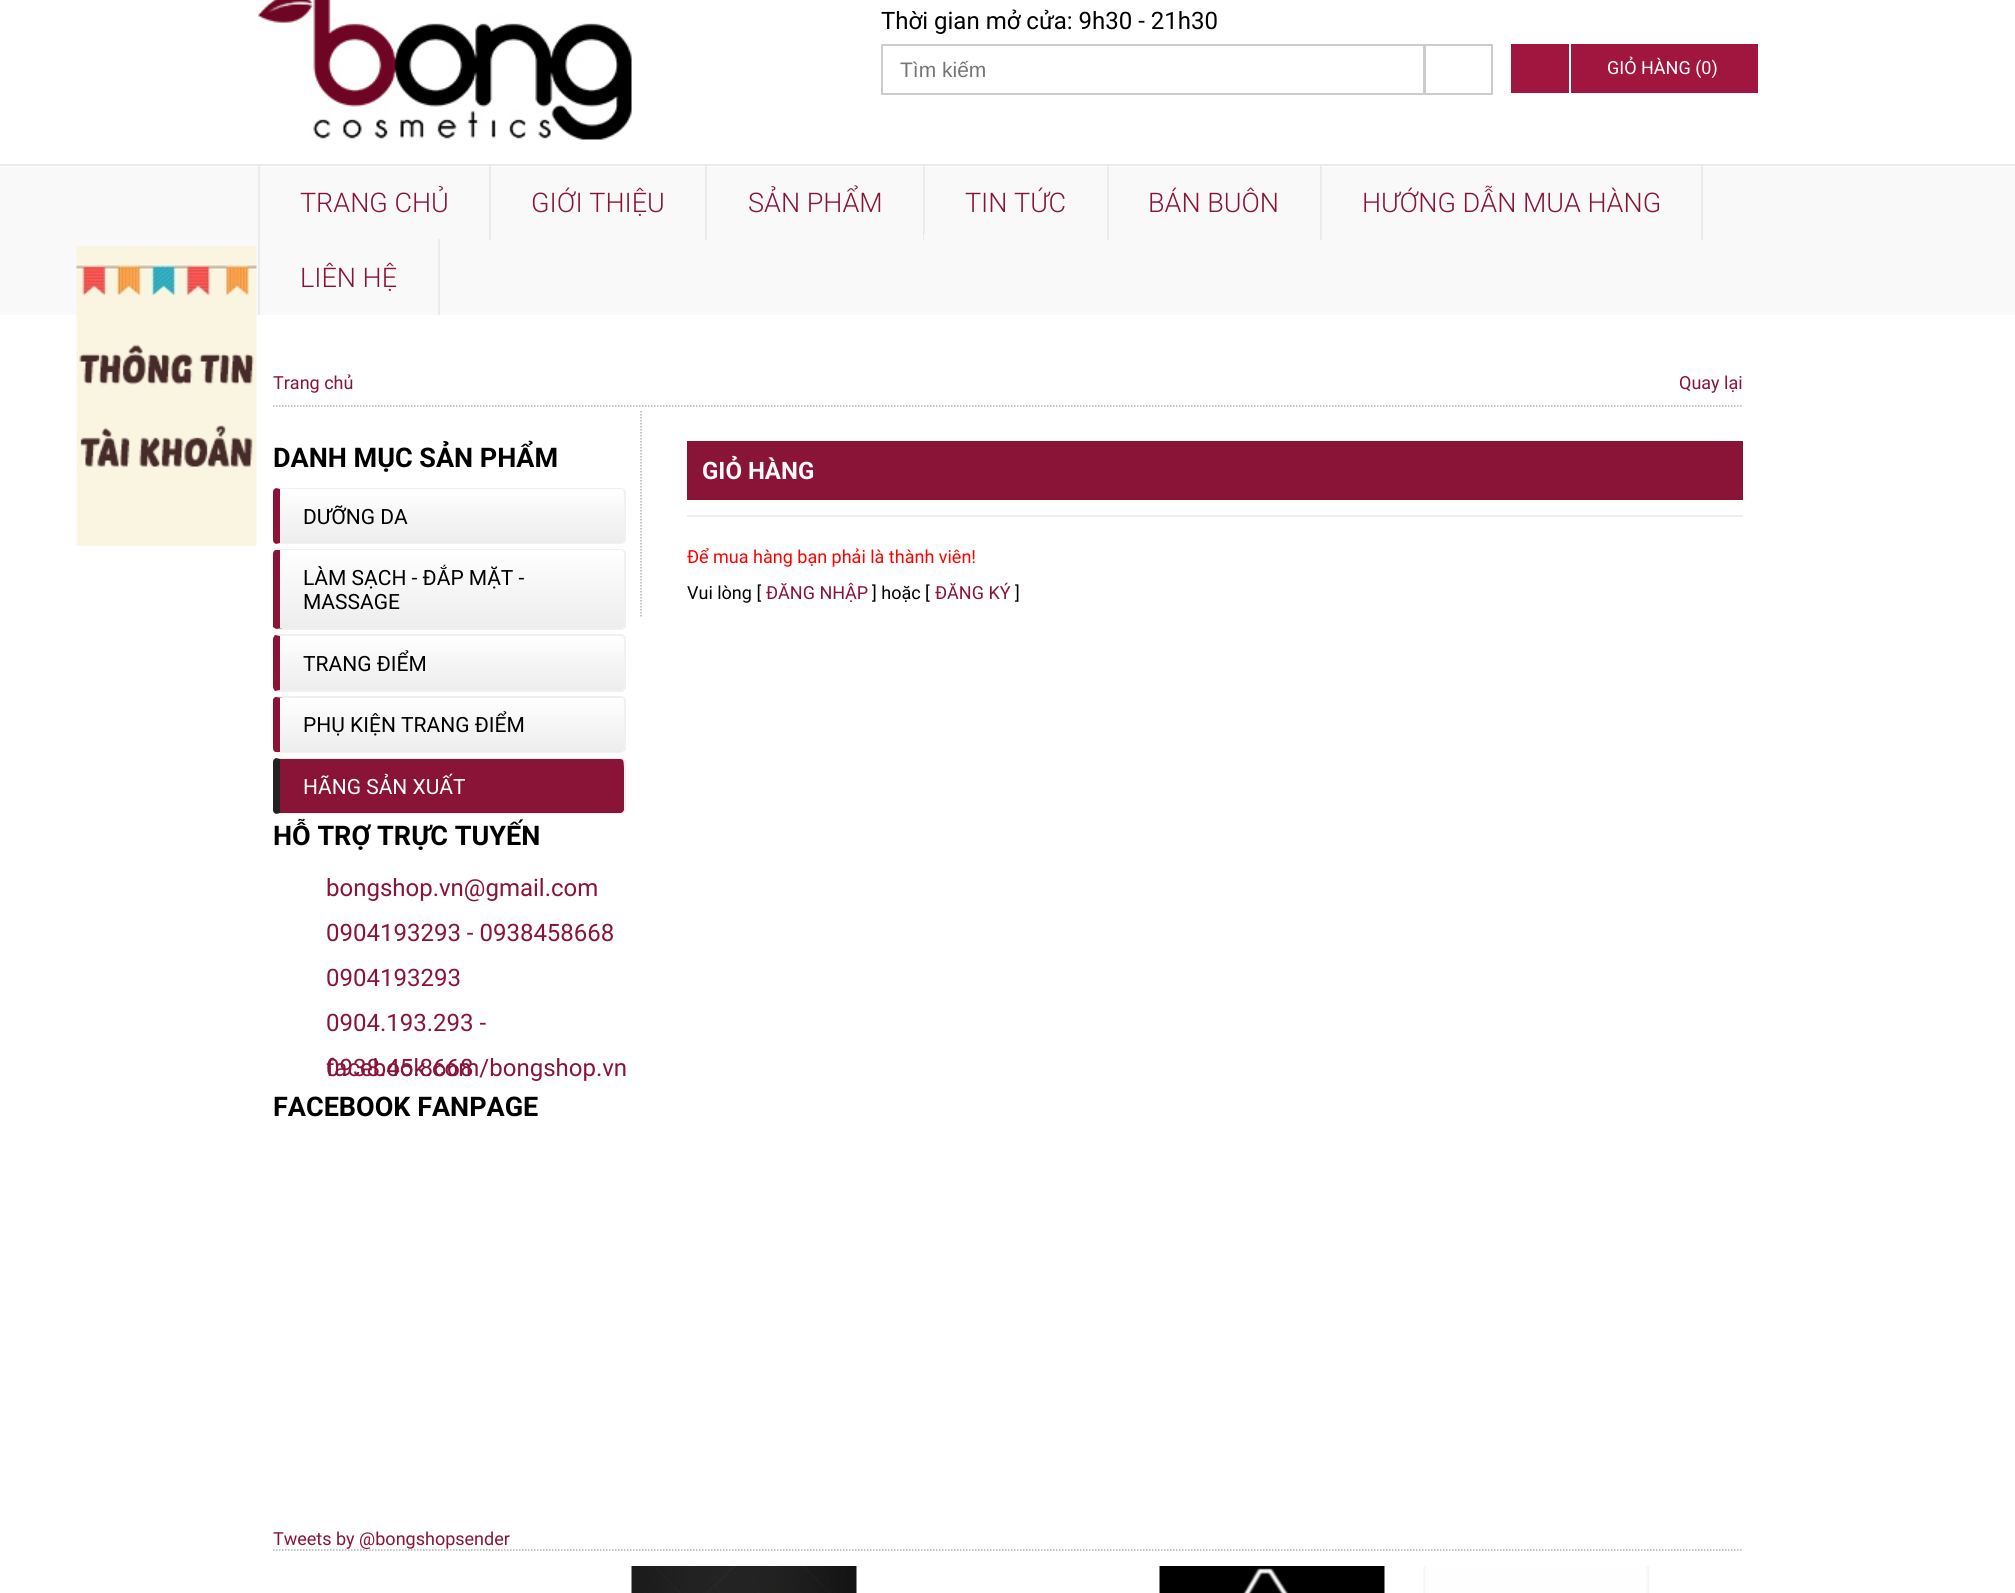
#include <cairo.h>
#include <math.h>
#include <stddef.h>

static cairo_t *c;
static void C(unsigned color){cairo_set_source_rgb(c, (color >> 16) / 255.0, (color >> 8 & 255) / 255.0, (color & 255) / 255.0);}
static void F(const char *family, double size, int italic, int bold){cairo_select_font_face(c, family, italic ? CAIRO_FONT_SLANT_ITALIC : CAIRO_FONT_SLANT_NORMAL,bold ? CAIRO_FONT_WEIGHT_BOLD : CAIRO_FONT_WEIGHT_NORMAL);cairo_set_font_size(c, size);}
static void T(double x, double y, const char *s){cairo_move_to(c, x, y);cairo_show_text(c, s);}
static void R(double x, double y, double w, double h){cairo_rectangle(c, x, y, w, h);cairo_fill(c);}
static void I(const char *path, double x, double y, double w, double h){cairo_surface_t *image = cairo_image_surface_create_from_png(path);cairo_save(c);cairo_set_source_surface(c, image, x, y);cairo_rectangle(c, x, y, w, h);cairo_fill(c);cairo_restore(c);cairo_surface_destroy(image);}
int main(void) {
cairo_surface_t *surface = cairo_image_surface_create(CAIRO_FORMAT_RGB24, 2015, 1593);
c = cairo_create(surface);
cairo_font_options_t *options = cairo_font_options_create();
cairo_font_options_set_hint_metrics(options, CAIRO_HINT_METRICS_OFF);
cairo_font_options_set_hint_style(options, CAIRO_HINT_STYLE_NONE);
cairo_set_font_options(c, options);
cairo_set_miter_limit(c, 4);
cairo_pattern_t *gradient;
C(0xffffff);
cairo_paint(c);
C(0xf9f9f9);
R(0,167,2015,148);
I("1.png",76,246,181,300);
I("2.png",258,0,374,140);
F("Roboto",24,0,0);
C(0x000000);
T(881,29,"Thời gian mở cửa: 9h30 - 21h30");
cairo_rectangle(c,882,45,542,49);
C(0xcccccc);
cairo_stroke(c);
F("Liberation Sans",21,0,0);
C(0x757575);
T(900,77,"Tìm kiếm");
cairo_rectangle(c,1425,45,67,49);
C(0xcccccc);
cairo_stroke(c);
C(0xa0163f);
R(1511,44,247,49);
C(0xffffff);
R(1569,44,2,49);
F("Roboto",18,0,0);
T(1607,74,"GIỎ HÀNG (0)");
C(0xebebeb);
R(0,164,2015,2);
R(489,164,2,76);
R(258,164,2,151);
F("Roboto Light",27,0,0);
C(0x891437);
T(300,212,"TRANG CHỦ");
C(0xebebeb);
R(705,164,2,76);
C(0x891437);
T(531,212,"GIỚI THIỆU");
C(0xebebeb);
R(923,164,2,76);
C(0x891437);
T(748,212,"SẢN PHẨM");
C(0xebebeb);
R(1107,164,2,76);
C(0xf9f9f9);
R(924,234,1,6);
C(0x891437);
T(965,212,"TIN TỨC");
C(0xebebeb);
R(1320,164,2,76);
C(0x891437);
T(1148,212,"BÁN BUÔN");
C(0xebebeb);
R(1701,164,2,76);
C(0x891437);
T(1362,212,"HƯỚNG DẪN MUA HÀNG");
C(0xebebeb);
R(438,239,2,76);
C(0x891437);
T(300,287,"LIÊN HỆ");
cairo_new_path(c);
cairo_move_to(c,273,406);
cairo_line_to(c,1743,406);
C(0xb2b2b2);
cairo_set_line_width(c,1.5);
cairo_set_dash(c,(double[]){1.5,1.5},2,0);
cairo_stroke(c);
F("Roboto",18,0,0);
C(0x891437);
T(273,389,"Trang chủ");
T(1679,389,"Quay lại");
F("Roboto",27,0,1);
C(0x000000);
T(273,467,"DANH MỤC SẢN PHẨM");
gradient = cairo_pattern_create_linear(452,489,452,543);
cairo_pattern_add_color_stop_rgba(gradient,0,1,1,1,1);
cairo_pattern_add_color_stop_rgba(gradient,.47,0.965,0.965,0.965,1);
cairo_pattern_add_color_stop_rgba(gradient,1,0.929,0.929,0.929,1);
cairo_set_source(c,gradient);
cairo_pattern_destroy(gradient);
cairo_new_path(c);
cairo_move_to(c,280,489);
cairo_line_to(c,621,489);
cairo_curve_to(c,623,489,624,490,624,492);
cairo_line_to(c,624,540);
cairo_curve_to(c,624,542,623,543,621,543);
cairo_line_to(c,280,543);
cairo_close_path(c);
cairo_fill(c);
C(0xf0f0f0);
cairo_new_path(c);
cairo_move_to(c,278,488);
cairo_line_to(c,276,488);
cairo_line_to(c,280,489);
cairo_line_to(c,621,489);
cairo_line_to(c,623,490);
cairo_line_to(c,624,489);
cairo_line_to(c,621,488);
cairo_close_path(c);
cairo_fill(c);
cairo_new_path(c);
cairo_move_to(c,626,541);
cairo_line_to(c,624,543);
cairo_line_to(c,623,542);
cairo_line_to(c,624,540);
cairo_curve_to(c,624,534,625,492,623,490);
cairo_line_to(c,624,489);
cairo_line_to(c,626,491);
cairo_close_path(c);
cairo_fill(c);
cairo_new_path(c);
cairo_move_to(c,624,543);
cairo_line_to(c,621,544);
cairo_line_to(c,276,544);
cairo_line_to(c,280,543);
cairo_line_to(c,621,543);
cairo_line_to(c,623,542);
cairo_close_path(c);
cairo_fill(c);
C(0x891437);
cairo_new_path(c);
cairo_move_to(c,280,489);
cairo_line_to(c,276,488);
cairo_curve_to(c,274,489,273,490,273,492);
cairo_line_to(c,273,540);
cairo_curve_to(c,273,542,274,543,276,544);
cairo_line_to(c,280,543);
cairo_close_path(c);
cairo_fill(c);
F("Roboto",21,0,0);
C(0x000000);
T(303,524,"DƯỠNG DA");
gradient = cairo_pattern_create_linear(452,551,452,629);
cairo_pattern_add_color_stop_rgba(gradient,0,1,1,1,1);
cairo_pattern_add_color_stop_rgba(gradient,.47,0.965,0.965,0.965,1);
cairo_pattern_add_color_stop_rgba(gradient,1,0.929,0.929,0.929,1);
cairo_set_source(c,gradient);
cairo_pattern_destroy(gradient);
cairo_new_path(c);
cairo_move_to(c,280,550);
cairo_line_to(c,621,550);
cairo_curve_to(c,623,550,624,552,624,554);
cairo_line_to(c,624,626);
cairo_curve_to(c,624,627,623,628,621,628);
cairo_line_to(c,280,628);
cairo_close_path(c);
cairo_fill(c);
C(0xf0f0f0);
cairo_new_path(c);
cairo_move_to(c,278,549);
cairo_line_to(c,276,550);
cairo_line_to(c,280,550);
cairo_line_to(c,621,550);
cairo_curve_to(c,622,550,623,550,623,551);
cairo_line_to(c,624,550);
cairo_line_to(c,621,549);
cairo_close_path(c);
cairo_fill(c);
cairo_new_path(c);
cairo_move_to(c,626,627);
cairo_line_to(c,624,629);
cairo_line_to(c,623,628);
cairo_line_to(c,624,626);
cairo_line_to(c,624,554);
cairo_line_to(c,623,551);
cairo_line_to(c,624,550);
cairo_line_to(c,626,552);
cairo_close_path(c);
cairo_fill(c);
cairo_new_path(c);
cairo_move_to(c,278,630);
cairo_line_to(c,621,630);
cairo_line_to(c,624,629);
cairo_line_to(c,623,628);
cairo_line_to(c,621,628);
cairo_line_to(c,283,628);
cairo_line_to(c,276,629);
cairo_close_path(c);
cairo_fill(c);
C(0x891437);
cairo_new_path(c);
cairo_move_to(c,273,554);
cairo_line_to(c,273,627);
cairo_line_to(c,276,629);
cairo_line_to(c,283,628);
cairo_line_to(c,280,628);
cairo_line_to(c,280,550);
cairo_line_to(c,276,550);
cairo_curve_to(c,274,550,273,552,273,554);
cairo_close_path(c);
cairo_fill(c);
C(0x000000);
T(303,585,"LÀM SẠCH - ĐẮP MẶT -");
T(303,609,"MASSAGE");
gradient = cairo_pattern_create_linear(452,636,452,690);
cairo_pattern_add_color_stop_rgba(gradient,0,1,1,1,1);
cairo_pattern_add_color_stop_rgba(gradient,.47,0.965,0.965,0.965,1);
cairo_pattern_add_color_stop_rgba(gradient,1,0.929,0.929,0.929,1);
cairo_set_source(c,gradient);
cairo_pattern_destroy(gradient);
cairo_new_path(c);
cairo_move_to(c,280,636);
cairo_line_to(c,621,636);
cairo_curve_to(c,623,636,624,637,624,639);
cairo_line_to(c,624,687);
cairo_curve_to(c,624,689,623,690,621,690);
cairo_line_to(c,280,690);
cairo_close_path(c);
cairo_fill(c);
C(0xf0f0f0);
cairo_new_path(c);
cairo_move_to(c,275,635);
cairo_line_to(c,276,634);
cairo_line_to(c,623,634);
cairo_line_to(c,624,636);
cairo_line_to(c,623,637);
cairo_line_to(c,621,636);
cairo_line_to(c,280,636);
cairo_close_path(c);
cairo_fill(c);
cairo_new_path(c);
cairo_move_to(c,626,689);
cairo_line_to(c,624,690);
cairo_line_to(c,623,689);
cairo_curve_to(c,625,687,624,645,624,639);
cairo_line_to(c,623,637);
cairo_line_to(c,624,636);
cairo_line_to(c,626,637);
cairo_close_path(c);
cairo_fill(c);
cairo_new_path(c);
cairo_move_to(c,276,692);
cairo_line_to(c,275,691);
cairo_line_to(c,280,690);
cairo_line_to(c,621,690);
cairo_line_to(c,623,689);
cairo_line_to(c,624,690);
cairo_line_to(c,623,692);
cairo_close_path(c);
cairo_fill(c);
C(0x891437);
cairo_new_path(c);
cairo_move_to(c,280,636);
cairo_line_to(c,275,635);
cairo_curve_to(c,274,636,273,638,273,639);
cairo_line_to(c,273,687);
cairo_curve_to(c,273,688,274,690,275,691);
cairo_line_to(c,280,690);
cairo_close_path(c);
cairo_fill(c);
C(0x000000);
T(303,671,"TRANG ĐIỂM");
gradient = cairo_pattern_create_linear(452,698,452,752);
cairo_pattern_add_color_stop_rgba(gradient,0,1,1,1,1);
cairo_pattern_add_color_stop_rgba(gradient,.47,0.965,0.965,0.965,1);
cairo_pattern_add_color_stop_rgba(gradient,1,0.929,0.929,0.929,1);
cairo_set_source(c,gradient);
cairo_pattern_destroy(gradient);
cairo_new_path(c);
cairo_move_to(c,280,698);
cairo_line_to(c,621,698);
cairo_curve_to(c,623,698,624,699,624,700);
cairo_line_to(c,624,748);
cairo_curve_to(c,624,750,623,752,621,752);
cairo_line_to(c,280,752);
cairo_close_path(c);
cairo_fill(c);
C(0xf0f0f0);
cairo_new_path(c);
cairo_move_to(c,278,696);
cairo_line_to(c,276,697);
cairo_line_to(c,283,698);
cairo_line_to(c,621,698);
cairo_line_to(c,623,698);
cairo_line_to(c,624,697);
cairo_line_to(c,621,696);
cairo_close_path(c);
cairo_fill(c);
cairo_new_path(c);
cairo_move_to(c,626,750);
cairo_line_to(c,624,752);
cairo_line_to(c,623,751);
cairo_curve_to(c,625,748,624,741,624,740);
cairo_line_to(c,624,700);
cairo_line_to(c,623,698);
cairo_line_to(c,624,697);
cairo_line_to(c,626,699);
cairo_close_path(c);
cairo_fill(c);
cairo_new_path(c);
cairo_move_to(c,278,753);
cairo_line_to(c,621,753);
cairo_line_to(c,624,752);
cairo_line_to(c,623,751);
cairo_curve_to(c,623,752,622,752,621,752);
cairo_line_to(c,280,752);
cairo_line_to(c,276,752);
cairo_close_path(c);
cairo_fill(c);
C(0x891437);
cairo_new_path(c);
cairo_move_to(c,280,698);
cairo_line_to(c,283,698);
cairo_line_to(c,276,697);
cairo_curve_to(c,274,697,273,699,273,700);
cairo_line_to(c,273,748);
cairo_curve_to(c,273,750,274,752,276,752);
cairo_line_to(c,280,752);
cairo_close_path(c);
cairo_fill(c);
C(0x000000);
T(303,732,"PHỤ KIỆN TRANG ĐIỂM");
C(0x891437);
cairo_new_path(c);
cairo_move_to(c,280,759);
cairo_line_to(c,621,759);
cairo_curve_to(c,623,759,624,760,624,762);
cairo_line_to(c,624,810);
cairo_curve_to(c,624,812,623,813,621,813);
cairo_line_to(c,280,813);
cairo_close_path(c);
cairo_fill(c);
C(0xf0f0f0);
cairo_new_path(c);
cairo_move_to(c,278,758);
cairo_line_to(c,276,758);
cairo_line_to(c,280,759);
cairo_line_to(c,621,759);
cairo_line_to(c,623,760);
cairo_line_to(c,624,759);
cairo_line_to(c,621,758);
cairo_close_path(c);
cairo_fill(c);
cairo_new_path(c);
cairo_move_to(c,626,811);
cairo_line_to(c,624,813);
cairo_line_to(c,623,812);
cairo_line_to(c,624,810);
cairo_curve_to(c,624,804,625,762,623,760);
cairo_line_to(c,624,759);
cairo_line_to(c,626,761);
cairo_close_path(c);
cairo_fill(c);
cairo_new_path(c);
cairo_move_to(c,624,813);
cairo_line_to(c,621,814);
cairo_line_to(c,276,814);
cairo_line_to(c,280,813);
cairo_line_to(c,621,813);
cairo_line_to(c,623,812);
cairo_close_path(c);
cairo_fill(c);
C(0x222222);
cairo_new_path(c);
cairo_move_to(c,280,759);
cairo_line_to(c,276,758);
cairo_curve_to(c,274,759,273,760,273,762);
cairo_line_to(c,273,810);
cairo_curve_to(c,273,812,274,813,276,814);
cairo_line_to(c,280,813);
cairo_close_path(c);
cairo_fill(c);
C(0xffffff);
T(303,794,"HÃNG SẢN XUẤT");
F("Roboto",27,0,1);
C(0x000000);
T(273,845,"HỖ TRỢ TRỰC TUYẾN");
F("Roboto",24,0,0);
C(0x891437);
T(326,896,"bongshop.vn@gmail.com");
T(326,941,"0904193293 - 0938458668");
T(326,986,"0904193293");
T(326,1031,"0904.193.293 -");
T(326,1076,"0938.45.8668");
T(326,1076,"facebook.com/bongshop.vn");
F("Roboto",27,0,1);
C(0x000000);
T(273,1116,"FACEBOOK FANPAGE");
F("Roboto",18,0,0);
C(0x891437);
T(273,1545,"Tweets by @bongshopsender");
cairo_new_path(c);
cairo_move_to(c,641,411);
cairo_line_to(c,641,618);
C(0xb2b2b2);
cairo_stroke(c);
C(0x891437);
R(687,441,1056,59);
F("Roboto",24,0,1);
C(0xf9f9f9);
T(702,479,"GIỎ HÀNG");
C(0xeeeeee);
R(687,515,1056,2);
F("Roboto",18,0,0);
C(0xfd0100);
T(687,563,"Để mua hàng bạn phải là thành viên!");
C(0x000000);
T(687,599,"Vui lòng [");
C(0x891437);
T(766,599,"ĐĂNG NHẬP");
C(0x000000);
T(872,599,"] hoặc [");
C(0x891437);
T(935,599,"ĐĂNG KÝ");
C(0x000000);
T(1015,599,"]");
cairo_new_path(c);
cairo_move_to(c,273,1550);
cairo_line_to(c,1743,1550);
C(0xb2b2b2);
cairo_stroke(c);
I("3.png",631,1566,226,27);
I("4.png",1159,1566,226,27);
I("5.png",1423,1566,226,27);
cairo_surface_write_to_png(surface, "o.png");
cairo_font_options_destroy(options);
cairo_destroy(c);
cairo_surface_destroy(surface);
return 0;
}
